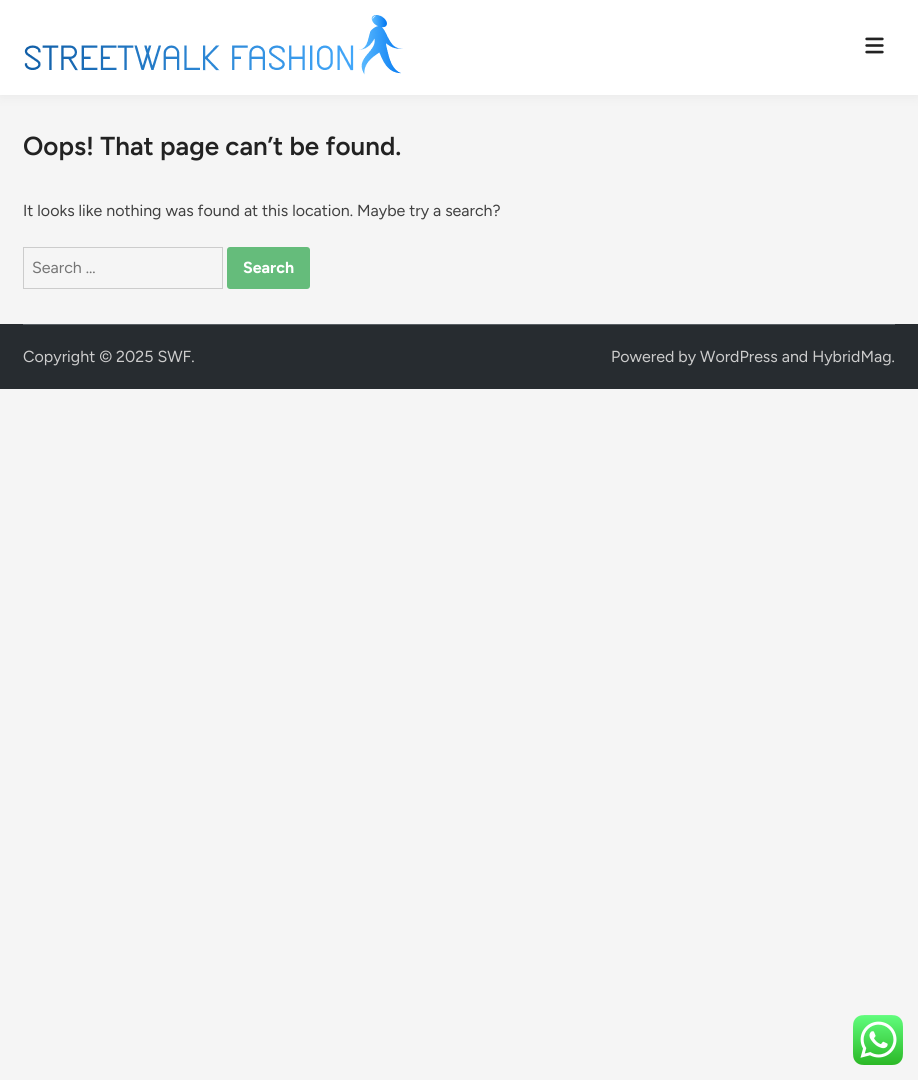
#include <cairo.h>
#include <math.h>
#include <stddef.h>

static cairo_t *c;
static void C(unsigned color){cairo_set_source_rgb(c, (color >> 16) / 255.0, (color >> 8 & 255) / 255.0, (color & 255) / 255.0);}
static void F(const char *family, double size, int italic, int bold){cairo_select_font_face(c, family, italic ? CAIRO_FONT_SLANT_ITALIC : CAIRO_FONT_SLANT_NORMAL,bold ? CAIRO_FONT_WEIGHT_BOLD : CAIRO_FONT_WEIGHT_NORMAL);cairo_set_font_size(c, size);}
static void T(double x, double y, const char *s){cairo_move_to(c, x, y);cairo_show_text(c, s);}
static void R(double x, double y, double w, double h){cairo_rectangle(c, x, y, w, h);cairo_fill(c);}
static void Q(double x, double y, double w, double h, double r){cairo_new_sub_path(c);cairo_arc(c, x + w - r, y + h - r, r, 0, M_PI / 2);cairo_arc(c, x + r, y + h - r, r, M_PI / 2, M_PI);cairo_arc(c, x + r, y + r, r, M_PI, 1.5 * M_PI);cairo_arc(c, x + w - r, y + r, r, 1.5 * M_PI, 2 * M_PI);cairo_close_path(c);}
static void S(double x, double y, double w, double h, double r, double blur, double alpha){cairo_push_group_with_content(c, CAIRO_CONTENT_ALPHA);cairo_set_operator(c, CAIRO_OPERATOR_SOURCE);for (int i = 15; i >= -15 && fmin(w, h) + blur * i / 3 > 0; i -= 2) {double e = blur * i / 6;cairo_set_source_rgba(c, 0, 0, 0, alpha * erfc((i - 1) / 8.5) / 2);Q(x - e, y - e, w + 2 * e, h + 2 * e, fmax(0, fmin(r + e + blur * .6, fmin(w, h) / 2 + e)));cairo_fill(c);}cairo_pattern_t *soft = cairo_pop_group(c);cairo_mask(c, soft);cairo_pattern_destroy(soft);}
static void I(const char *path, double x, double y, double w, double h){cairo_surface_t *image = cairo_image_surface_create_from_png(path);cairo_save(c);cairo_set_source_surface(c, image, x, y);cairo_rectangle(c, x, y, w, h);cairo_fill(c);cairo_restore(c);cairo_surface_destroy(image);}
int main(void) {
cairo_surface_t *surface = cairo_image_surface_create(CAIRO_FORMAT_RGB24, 918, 1080);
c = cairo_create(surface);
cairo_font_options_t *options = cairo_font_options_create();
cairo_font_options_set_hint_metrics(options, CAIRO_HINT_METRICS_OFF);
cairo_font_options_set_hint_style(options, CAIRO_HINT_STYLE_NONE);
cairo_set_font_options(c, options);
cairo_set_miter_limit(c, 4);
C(0xf5f5f5);
cairo_paint(c);
C(0x000000);
S(0,0,918,95,0,7.5,.06);
C(0xffffff);
R(0,0,918,95);
I("1.png",24,15,379,60);
I("2.png",865,37,19,17);
F("Figtree SemiBold",26,0,0);
C(0x222222);
T(23,155,"Oops! That page can’t be found.");
F("Figtree",16,0,0);
C(0x404040);
T(23,216,"It looks like nothing was found at this location. Maybe try a search?");
cairo_rectangle(c,23.5,247.5,199,41);
C(0xcccccc);
cairo_set_line_width(c,1);
cairo_stroke(c);
C(0x757575);
T(32,273,"Search …");
C(0x65bc7b);
Q(227,247,83,42,3);
cairo_fill(c);
F("Figtree",16,0,1);
C(0xffffff);
T(243,273,"Search");
C(0x272c30);
R(0,324,918,65);
C(0x595f64);
R(23,324,872,1);
F("Figtree",16,0,0);
C(0xcccccc);
T(23,362,"Copyright © 2025 SWF.");
T(611,362,"Powered by WordPress and HybridMag.");
I("3.png",853,1015,50,50);
cairo_surface_write_to_png(surface, "o.png");
cairo_font_options_destroy(options);
cairo_destroy(c);
cairo_surface_destroy(surface);
return 0;
}
